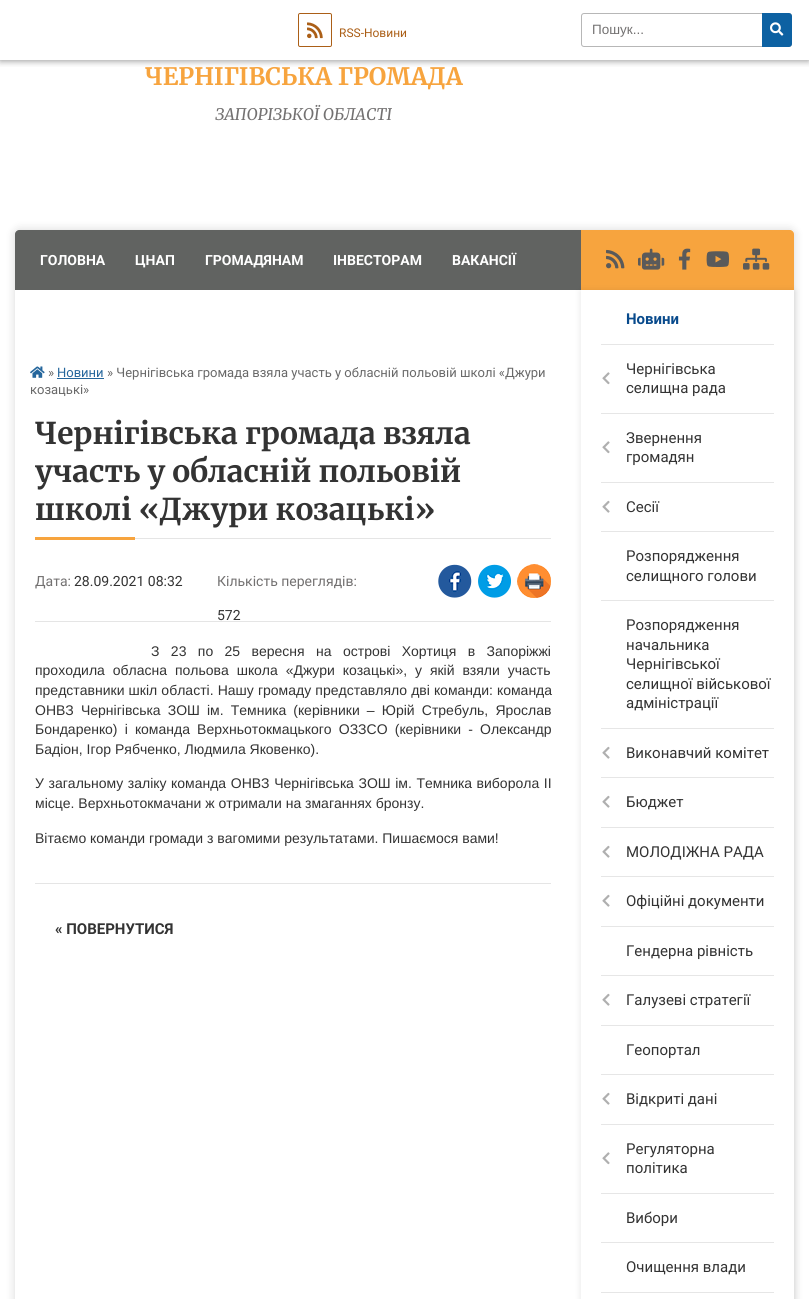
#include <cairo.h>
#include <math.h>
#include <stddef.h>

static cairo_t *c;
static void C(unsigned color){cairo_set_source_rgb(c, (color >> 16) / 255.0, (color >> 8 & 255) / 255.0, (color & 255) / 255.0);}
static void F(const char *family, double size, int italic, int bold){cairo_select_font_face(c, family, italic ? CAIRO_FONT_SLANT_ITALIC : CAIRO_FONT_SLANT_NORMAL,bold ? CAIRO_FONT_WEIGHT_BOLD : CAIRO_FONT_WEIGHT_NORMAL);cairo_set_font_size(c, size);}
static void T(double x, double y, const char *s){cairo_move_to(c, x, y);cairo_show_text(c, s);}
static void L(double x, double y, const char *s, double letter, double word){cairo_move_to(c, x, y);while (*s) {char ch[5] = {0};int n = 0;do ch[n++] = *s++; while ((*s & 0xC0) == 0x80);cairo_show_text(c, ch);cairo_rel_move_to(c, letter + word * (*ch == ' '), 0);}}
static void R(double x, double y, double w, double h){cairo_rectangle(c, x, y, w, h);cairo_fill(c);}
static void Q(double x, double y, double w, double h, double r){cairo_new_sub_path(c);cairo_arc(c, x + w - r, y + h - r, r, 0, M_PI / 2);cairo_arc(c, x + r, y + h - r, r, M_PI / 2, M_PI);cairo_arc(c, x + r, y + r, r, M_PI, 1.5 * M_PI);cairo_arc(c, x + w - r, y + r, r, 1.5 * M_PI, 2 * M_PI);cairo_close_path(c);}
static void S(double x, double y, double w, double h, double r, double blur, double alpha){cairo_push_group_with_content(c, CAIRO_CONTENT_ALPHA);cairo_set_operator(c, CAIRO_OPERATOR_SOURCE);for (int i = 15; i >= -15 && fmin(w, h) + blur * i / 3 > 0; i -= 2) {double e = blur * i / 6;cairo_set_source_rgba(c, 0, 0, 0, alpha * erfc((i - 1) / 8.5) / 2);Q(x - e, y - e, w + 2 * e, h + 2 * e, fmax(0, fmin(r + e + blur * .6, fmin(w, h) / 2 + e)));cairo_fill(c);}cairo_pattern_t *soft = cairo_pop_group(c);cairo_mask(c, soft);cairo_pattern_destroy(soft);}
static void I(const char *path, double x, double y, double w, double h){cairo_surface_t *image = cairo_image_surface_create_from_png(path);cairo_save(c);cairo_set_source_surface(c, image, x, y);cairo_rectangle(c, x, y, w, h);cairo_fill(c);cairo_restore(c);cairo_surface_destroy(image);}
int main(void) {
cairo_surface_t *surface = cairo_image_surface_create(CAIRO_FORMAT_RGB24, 809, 1299);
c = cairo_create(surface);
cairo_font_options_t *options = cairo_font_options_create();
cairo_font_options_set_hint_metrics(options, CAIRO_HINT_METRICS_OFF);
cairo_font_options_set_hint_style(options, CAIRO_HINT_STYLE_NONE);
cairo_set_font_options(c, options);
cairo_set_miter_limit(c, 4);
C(0xffffff);
cairo_paint(c);
cairo_save(c);
cairo_rectangle(c,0,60,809,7);
cairo_clip(c);
C(0x000000);
S(0,1,809,60,0,3.5,.4);
cairo_restore(c);
Q(298.5,13.5,33,33,1.5);
C(0xab5f17);
cairo_set_line_width(c,1);
cairo_stroke(c);
I("1.png",307,22,16,17);
F("Roboto",12,0,0);
T(339,37,"RSS-Новини");
Q(581.5,13.5,210,33,2.5);
C(0xb7b7b7);
cairo_stroke(c);
F("Liberation Sans",13.5,0,0);
C(0x737171);
T(592,34,"Пошук...");
C(0x0d61a2);
cairo_new_path(c);
cairo_move_to(c,762,13);
cairo_line_to(c,789,13);
cairo_curve_to(c,790.5,13,792,14.5,792,16);
cairo_line_to(c,792,44);
cairo_curve_to(c,792,45.5,790.5,47,789,47);
cairo_line_to(c,762,47);
cairo_close_path(c);
cairo_fill(c);
I("2.png",770,22,14,14);
F("Merriweather Light",24,0,0);
C(0xf7a43e);
T(145,85,"ЧЕРНІГІВСЬКА ГРОМАДА");
F("Merriweather Light",16,1,0);
C(0x737171);
T(215,120,"ЗАПОРІЗЬКОЇ ОБЛАСТІ");
C(0x000000);
S(15,230,779,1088,4,5,.15);
C(0xffffff);
Q(15,230,779,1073,4);
cairo_fill(c);
C(0x616361);
cairo_new_path(c);
cairo_move_to(c,19,230);
cairo_line_to(c,581,230);
cairo_line_to(c,581,290);
cairo_line_to(c,15,290);
cairo_line_to(c,15,234);
cairo_curve_to(c,15,232,17,230,19,230);
cairo_close_path(c);
cairo_fill(c);
F("Roboto",14,0,1);
C(0xffffff);
T(40,265,"ГОЛОВНА");
T(135,265,"ЦНАП");
T(205,265,"ГРОМАДЯНАМ");
T(333,265,"ІНВЕСТОРАМ");
T(452,265,"ВАКАНСІЇ");
I("3.png",30,366,15,12);
F("Roboto",13,0,0);
C(0x696969);
T(48,377,"»");
C(0x25669c);
T(57,377,"Новини");
R(57,378,47,1);
C(0x696969);
T(107,377,"» Чернігівська громада взяла участь у обласній польовій школі «Джури");
T(30,394,"козацькі»");
C(0xe5e5e5);
R(135,538,416,1);
F("Merriweather Light",30,0,0);
C(0x333333);
T(35,444,"Чернігівська громада взяла");
T(35,482,"участь у обласній польовій");
T(35,520,"школі «Джури козацькі»");
C(0xf7a43e);
R(35,537,100,3);
F("Roboto",14,0,0);
C(0x737171);
T(35,586,"Дата:");
C(0x333333);
T(74,586,"28.09.2021 08:32");
C(0x737171);
T(217,586,"Кількість переглядів:");
C(0x333333);
T(217,620,"572");
I("4.png",438,564,34,34);
I("5.png",478,564,33,34);
I("6.png",517,564,34,34);
C(0xe5e5e5);
R(35,621,516,1);
F("Liberation Sans",14,0,0);
C(0x333333);
L(151,656,"З 23 по 25 вересня на острові Хортиця в Запоріжжі",0,7.5);
L(35,675,"проходила обласна польова школа «Джури козацькі», у якій взяли участь",0,4);
L(35,695,"представники шкіл області. Нашу громаду представляло дві команди: команда",0,.25);
L(35,715,"ОНВЗ Чернігівська ЗОШ ім. Темника (керівники – Юрій Стребуль, Ярослав",0,3.25);
L(35,734,"Бондаренко) і команда Верхньотокмацького ОЗЗСО (керівники - Олександр",0,3.25);
T(35,754,"Бадіон, Ігор Рябченко, Людмила Яковенко).");
L(35,788,"У загальному заліку команда ОНВЗ Чернігівська ЗОШ ім. Темника виборола ІІ",0,.75);
T(35,808,"місце. Верхньотокмачани ж отримали на змаганнях бронзу.");
T(35,843,"Вітаємо команди громади з вагомими результатами. Пишаємося вами!");
C(0xe5e5e5);
R(35,883,516,1);
F("Roboto",15,0,1);
C(0x333333);
T(55,934,"« ПОВЕРНУТИСЯ");
C(0xf7a43e);
cairo_new_path(c);
cairo_move_to(c,581,230);
cairo_line_to(c,790,230);
cairo_curve_to(c,792,230,794,232,794,234);
cairo_line_to(c,794,290);
cairo_line_to(c,581,290);
cairo_close_path(c);
cairo_fill(c);
I("7.png",606,249,19,20);
I("8.png",638,248,27,22);
I("9.png",678,248,13,22);
I("10.png",706,251,23,16);
I("11.png",743,248,27,22);
cairo_save(c);
cairo_set_fill_rule(c,CAIRO_FILL_RULE_EVEN_ODD);
cairo_new_path(c);
cairo_move_to(c,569,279);
cairo_line_to(c,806,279);
cairo_line_to(c,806,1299);
cairo_line_to(c,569,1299);
cairo_close_path(c);
cairo_move_to(c,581,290);
cairo_line_to(c,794,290);
cairo_line_to(c,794,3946);
cairo_line_to(c,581,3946);
cairo_close_path(c);
cairo_clip(c);
C(0x000000);
S(581,291,213,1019,0,3.5,.1);
cairo_restore(c);
C(0x084a8c);
T(626,324,"Новини");
C(0xe6e6e6);
R(601,344,173,1);
I("12.png",602,372,8,13);
F("Roboto",15,0,0);
C(0x333333);
T(626,374,"Чернігівська");
T(626,393,"селищна рада");
C(0xe6e6e6);
R(601,413,173,1);
I("12.png",602,441,8,13);
C(0x333333);
T(626,443,"Звернення");
T(626,462,"громадян");
C(0xe6e6e6);
R(601,482,173,1);
I("13.png",602,500,8,13);
C(0x333333);
T(626,512,"Сесії");
C(0xe6e6e6);
R(601,531,173,1);
C(0x333333);
T(626,561,"Розпорядження");
T(626,581,"селищного голови");
C(0xe6e6e6);
R(601,600,173,1);
C(0x333333);
T(626,630,"Розпорядження");
T(626,650,"начальника");
T(626,669,"Чернігівської");
T(626,689,"селищної військової");
T(626,708,"адміністрації");
C(0xe6e6e6);
R(601,728,173,1);
I("13.png",602,746,8,13);
C(0x333333);
T(626,758,"Виконавчий комітет");
C(0xe6e6e6);
R(601,777,173,1);
I("13.png",602,795,8,13);
C(0x333333);
T(626,807,"Бюджет");
C(0xe6e6e6);
R(601,827,173,1);
I("13.png",602,845,8,13);
C(0x333333);
T(626,857,"МОЛОДІЖНА РАДА");
C(0xe6e6e6);
R(601,876,173,1);
I("13.png",602,894,8,13);
C(0x333333);
T(626,906,"Офіційні документи");
C(0xe6e6e6);
R(601,926,173,1);
C(0x333333);
T(626,956,"Гендерна рівність");
C(0xe6e6e6);
R(601,975,173,1);
I("13.png",602,993,8,13);
C(0x333333);
T(626,1005,"Галузеві стратегії");
C(0xe6e6e6);
R(601,1025,173,1);
C(0x333333);
T(626,1055,"Геопортал");
C(0xe6e6e6);
R(601,1074,173,1);
I("13.png",602,1092,8,13);
C(0x333333);
T(626,1104,"Відкриті дані");
C(0xe6e6e6);
R(601,1124,173,1);
I("12.png",602,1152,8,13);
C(0x333333);
T(626,1154,"Регуляторна");
T(626,1173,"політика");
C(0xe6e6e6);
R(601,1193,173,1);
C(0x333333);
T(626,1223,"Вибори");
C(0xe6e6e6);
R(601,1242,173,1);
C(0x333333);
T(626,1272,"Очищення влади");
C(0xe6e6e6);
R(601,1292,173,1);
cairo_surface_write_to_png(surface, "o.png");
cairo_font_options_destroy(options);
cairo_destroy(c);
cairo_surface_destroy(surface);
return 0;
}
